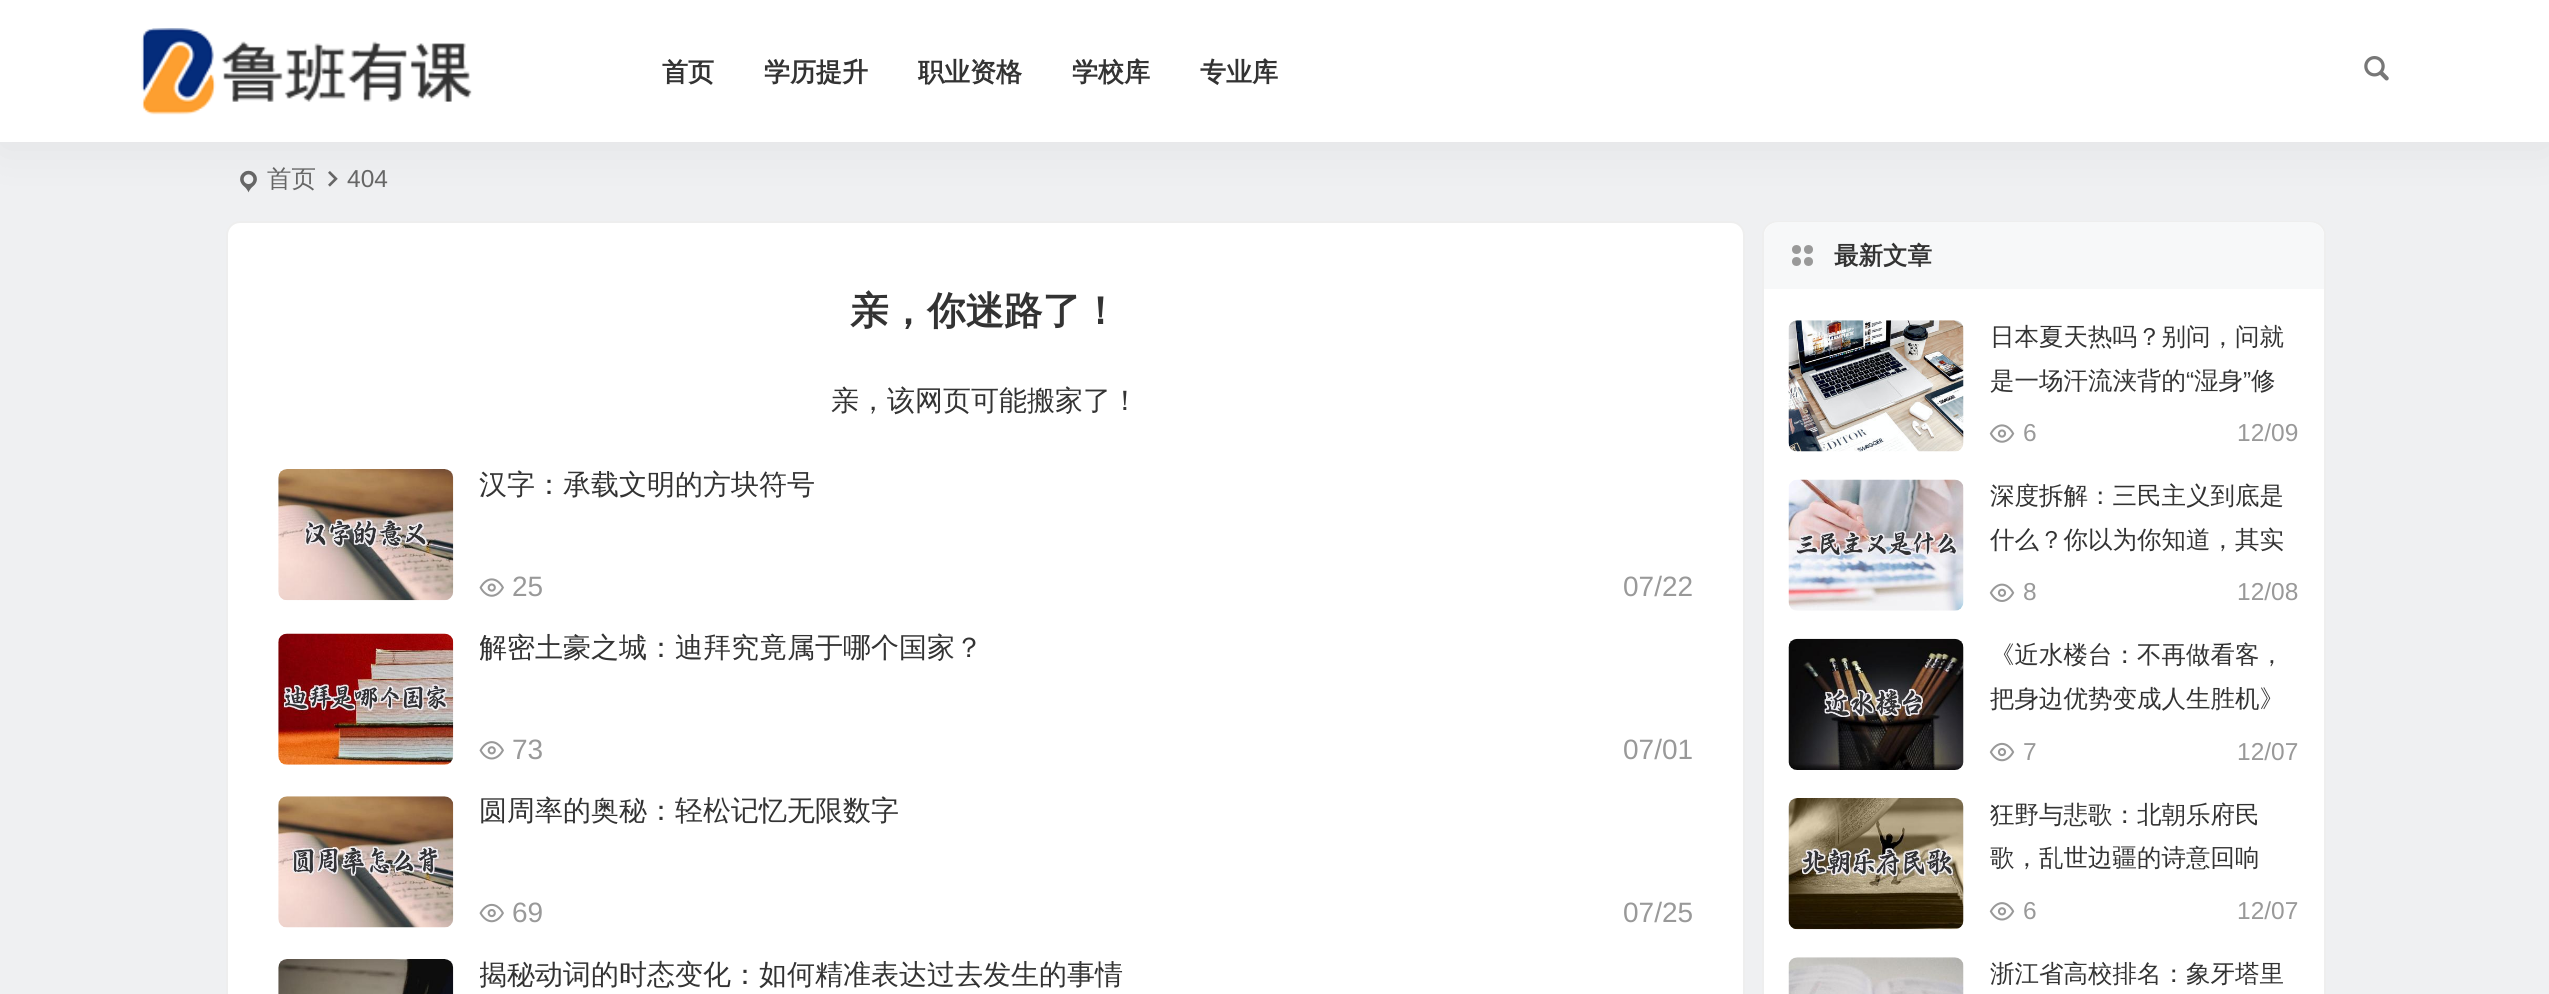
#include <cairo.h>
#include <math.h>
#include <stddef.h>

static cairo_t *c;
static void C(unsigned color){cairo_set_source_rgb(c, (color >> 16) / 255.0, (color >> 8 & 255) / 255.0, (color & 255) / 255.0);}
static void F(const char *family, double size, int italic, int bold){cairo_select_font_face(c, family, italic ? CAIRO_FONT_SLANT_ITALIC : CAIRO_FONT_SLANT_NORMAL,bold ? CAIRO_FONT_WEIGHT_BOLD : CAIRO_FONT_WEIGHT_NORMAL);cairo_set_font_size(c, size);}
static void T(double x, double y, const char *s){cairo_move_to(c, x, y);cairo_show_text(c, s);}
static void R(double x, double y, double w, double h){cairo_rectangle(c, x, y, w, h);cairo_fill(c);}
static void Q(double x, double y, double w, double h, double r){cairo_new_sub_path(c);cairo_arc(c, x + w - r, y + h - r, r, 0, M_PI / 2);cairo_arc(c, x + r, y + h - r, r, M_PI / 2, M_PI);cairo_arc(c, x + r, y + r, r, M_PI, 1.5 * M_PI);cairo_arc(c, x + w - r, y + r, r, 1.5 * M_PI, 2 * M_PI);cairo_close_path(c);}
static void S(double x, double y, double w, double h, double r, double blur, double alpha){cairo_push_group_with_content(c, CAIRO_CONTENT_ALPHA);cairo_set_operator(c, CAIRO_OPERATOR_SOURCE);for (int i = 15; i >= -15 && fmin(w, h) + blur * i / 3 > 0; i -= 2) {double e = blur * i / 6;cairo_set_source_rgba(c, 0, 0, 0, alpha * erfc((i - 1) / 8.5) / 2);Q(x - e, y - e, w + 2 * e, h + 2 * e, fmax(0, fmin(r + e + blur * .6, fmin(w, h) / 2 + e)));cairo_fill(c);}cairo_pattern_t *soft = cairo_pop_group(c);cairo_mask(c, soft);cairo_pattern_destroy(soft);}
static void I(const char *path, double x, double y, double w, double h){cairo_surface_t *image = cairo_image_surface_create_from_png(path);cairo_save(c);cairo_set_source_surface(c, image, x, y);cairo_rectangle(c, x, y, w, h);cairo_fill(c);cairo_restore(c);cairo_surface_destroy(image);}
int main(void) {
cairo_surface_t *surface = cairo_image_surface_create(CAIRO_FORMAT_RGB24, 2549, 994);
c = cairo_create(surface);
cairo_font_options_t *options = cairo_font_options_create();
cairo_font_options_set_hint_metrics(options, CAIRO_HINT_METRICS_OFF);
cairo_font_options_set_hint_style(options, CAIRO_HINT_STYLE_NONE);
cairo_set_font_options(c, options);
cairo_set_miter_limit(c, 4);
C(0xeff0f2);
cairo_paint(c);
I("3.png",240,170,17,23);
I("4.png",328,171,10,16);
C(0xffffff);
Q(226,221,1519,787,14);
cairo_fill(c);
Q(227,222,1517,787,13);
cairo_set_source_rgba(c,0,0,0,0.07);
cairo_stroke(c);
C(0xffffff);
Q(1762,221,564,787,14);
cairo_fill(c);
Q(1763,222,562,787,13);
cairo_set_source_rgba(c,0,0,0,0.07);
cairo_stroke(c);
C(0xf7f8f9);
cairo_new_path(c);
cairo_move_to(c,1778,222);
cairo_line_to(c,2310,222);
cairo_curve_to(c,2317.5,222,2324,228.5,2324,236);
cairo_line_to(c,2324,289);
cairo_line_to(c,1764,289);
cairo_line_to(c,1764,236);
cairo_curve_to(c,1764,228.5,1770.5,222,1778,222);
cairo_close_path(c);
cairo_fill(c);
C(0x000000);
S(0,5,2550,142,0,26,.06);
C(0xffffff);
R(0,0,2549,142);
I("1.png",141,28,331,87);
F("WenQuanYi Zen Hei",26,0,1);
C(0x333333);
T(662,81,"首页");
T(764,81,"学历提升");
T(918,81,"职业资格");
T(1072,81,"学校库");
T(1200,81,"专业库");
I("2.png",2364,56,25,25);
F("WenQuanYi Zen Hei Medium",24.5,0,0);
C(0x666666);
T(267,187,"首页");
F("Liberation Sans",24.5,0,0);
T(347,187,"404");
F("WenQuanYi Zen Hei",38.5,0,1);
C(0x333333);
T(850,324,"亲，你迷路了！");
F("WenQuanYi Zen Hei Medium",28,0,0);
T(831,410,"亲，该网页可能搬家了！");
I("5.png",278,469,176,132);
T(479,494,"汉字：承载文明的方块符号");
I("6.png",479,578,25,19);
F("Liberation Sans",28,0,0);
C(0x999999);
T(512,596,"25");
T(1623,596,"07/22");
I("7.png",278,633,176,132);
cairo_save(c);
cairo_rectangle(c,480,627,1212,92);
cairo_clip(c);
F("WenQuanYi Zen Hei Medium",28,0,0);
C(0x333333);
T(479,657,"解密土豪之城：迪拜究竟属于哪个国家？");
cairo_restore(c);
I("8.png",479,741,25,19);
T(512,759,"73");
T(1623,759,"07/01");
I("9.png",278,796,176,132);
F("WenQuanYi Zen Hei Medium",28,0,0);
C(0x333333);
T(479,820,"圆周率的奥秘：轻松记忆无限数字");
I("10.png",479,903,25,20);
F("Liberation Sans",28,0,0);
C(0x999999);
T(512,922,"69");
T(1623,922,"07/25");
I("11.png",278,959,176,35);
cairo_save(c);
cairo_rectangle(c,480,952,1212,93);
cairo_clip(c);
F("WenQuanYi Zen Hei Medium",28,0,0);
C(0x333333);
T(479,984,"揭秘动词的时态变化：如何精准表达过去发生的事情");
cairo_restore(c);
cairo_new_path(c);
cairo_arc(c,1796.5,249.5,4.5,0,2 * M_PI);
cairo_fill(c);
cairo_arc(c,1808.5,249.5,4.5,0,2 * M_PI);
cairo_fill(c);
cairo_arc(c,1796.5,261.5,4.5,0,2 * M_PI);
cairo_fill(c);
cairo_arc(c,1808.5,261.5,4.5,0,2 * M_PI);
cairo_fill(c);
F("WenQuanYi Zen Hei",24.5,0,1);
C(0x333333);
T(1834,264,"最新文章");
I("12.png",1788,320,176,132);
F("WenQuanYi Zen Hei Medium",24.5,0,0);
T(1990,345,"日本夏天热吗？别问，问就");
T(1990,389,"是一场汗流浃背的");
F("Liberation Sans",24.5,0,0);
T(2186,389,"“");
F("WenQuanYi Zen Hei Medium",24.5,0,0);
T(2194,389,"湿身");
F("Liberation Sans",24.5,0,0);
T(2243,389,"”");
F("WenQuanYi Zen Hei Medium",24.5,0,0);
T(2251,389,"修");
I("13.png",1989,424,26,19);
F("Liberation Sans",24.5,0,0);
C(0x999999);
T(2023,441,"6");
T(2237,441,"12/09");
I("14.png",1788,479,176,132);
F("WenQuanYi Zen Hei Medium",24.5,0,0);
C(0x333333);
T(1990,504,"深度拆解：三民主义到底是");
T(1990,548,"什么？你以为你知道，其实");
I("15.png",1989,583,26,19);
F("Liberation Sans",24.5,0,0);
C(0x999999);
T(2023,600,"8");
T(2237,600,"12/08");
I("16.png",1788,638,176,132);
F("WenQuanYi Zen Hei Medium",24.5,0,0);
C(0x333333);
T(1990,663,"《近水楼台：不再做看客，");
T(1990,707,"把身边优势变成人生胜机》");
I("17.png",1989,742,26,20);
F("Liberation Sans",24.5,0,0);
C(0x999999);
T(2023,760,"7");
T(2237,760,"12/07");
I("18.png",1788,798,176,132);
F("WenQuanYi Zen Hei Medium",24.5,0,0);
C(0x333333);
T(1990,823,"狂野与悲歌：北朝乐府民");
T(1990,866,"歌，乱世边疆的诗意回响");
I("19.png",1989,902,26,19);
F("Liberation Sans",24.5,0,0);
C(0x999999);
T(2023,919,"6");
T(2237,919,"12/07");
I("20.png",1788,957,176,37);
F("WenQuanYi Zen Hei Medium",24.5,0,0);
C(0x333333);
T(1990,982,"浙江省高校排名：象牙塔里");
cairo_surface_write_to_png(surface, "o.png");
cairo_font_options_destroy(options);
cairo_destroy(c);
cairo_surface_destroy(surface);
return 0;
}
